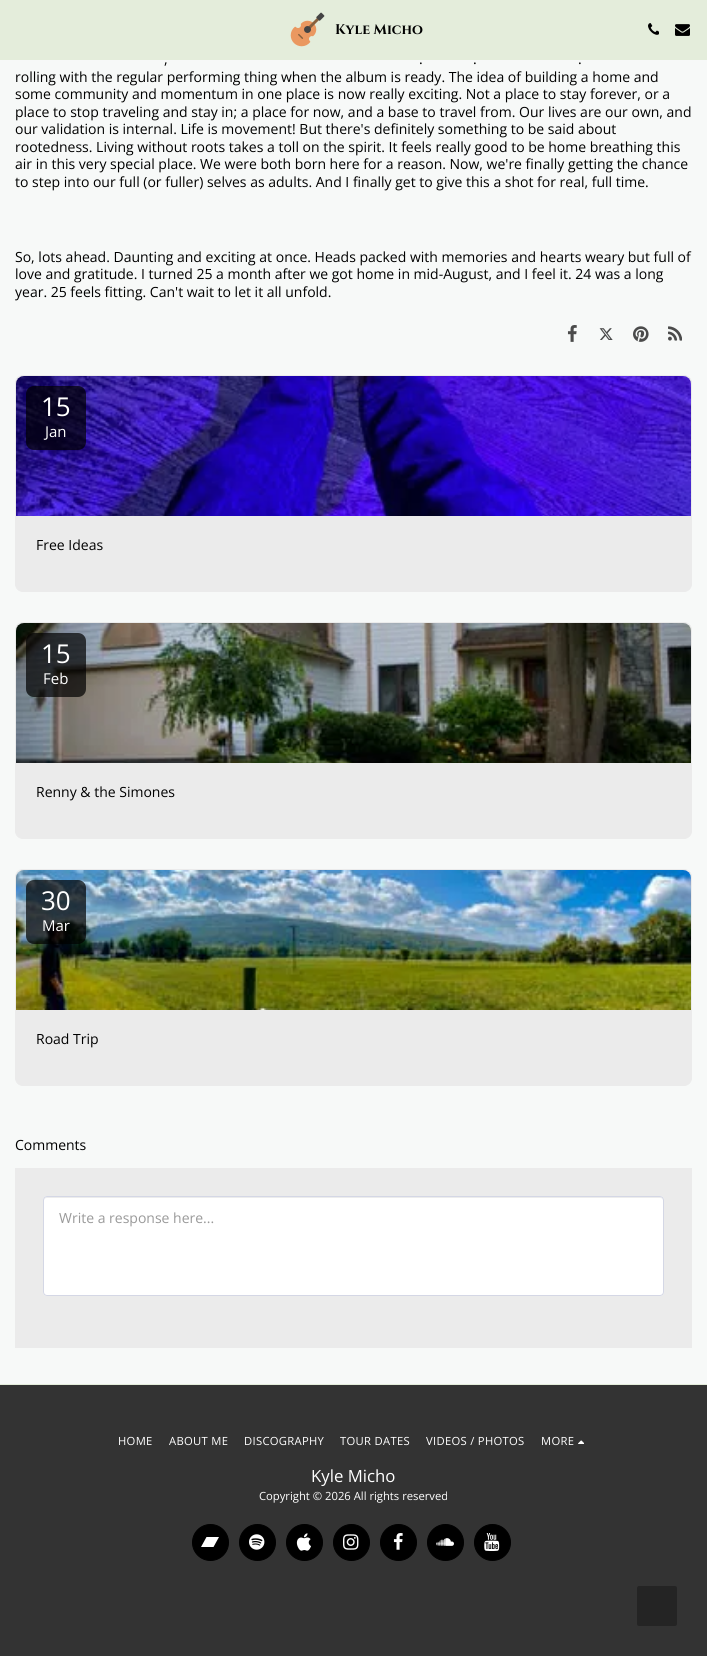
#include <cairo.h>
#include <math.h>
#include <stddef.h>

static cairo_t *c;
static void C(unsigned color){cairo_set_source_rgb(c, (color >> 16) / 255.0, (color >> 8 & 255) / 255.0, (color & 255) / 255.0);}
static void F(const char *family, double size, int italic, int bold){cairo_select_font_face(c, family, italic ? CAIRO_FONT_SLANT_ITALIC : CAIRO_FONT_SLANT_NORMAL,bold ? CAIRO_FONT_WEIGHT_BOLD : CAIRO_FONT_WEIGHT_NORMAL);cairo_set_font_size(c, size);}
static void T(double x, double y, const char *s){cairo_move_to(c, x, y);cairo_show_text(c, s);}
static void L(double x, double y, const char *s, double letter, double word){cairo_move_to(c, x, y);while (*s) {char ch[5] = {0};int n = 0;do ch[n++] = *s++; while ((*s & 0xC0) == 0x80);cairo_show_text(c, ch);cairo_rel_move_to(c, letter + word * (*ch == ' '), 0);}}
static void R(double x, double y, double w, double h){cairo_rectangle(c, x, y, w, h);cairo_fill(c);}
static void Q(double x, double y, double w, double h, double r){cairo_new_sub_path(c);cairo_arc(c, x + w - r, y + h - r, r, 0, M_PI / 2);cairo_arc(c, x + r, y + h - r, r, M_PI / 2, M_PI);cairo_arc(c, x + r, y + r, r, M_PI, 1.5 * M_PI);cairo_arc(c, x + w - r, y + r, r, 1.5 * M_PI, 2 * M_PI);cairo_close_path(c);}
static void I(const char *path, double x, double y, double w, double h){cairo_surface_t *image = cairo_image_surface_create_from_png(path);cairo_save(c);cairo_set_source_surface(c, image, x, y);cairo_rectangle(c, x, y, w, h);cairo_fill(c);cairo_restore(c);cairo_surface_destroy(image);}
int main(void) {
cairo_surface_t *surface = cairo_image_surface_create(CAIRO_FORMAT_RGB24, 707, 1656);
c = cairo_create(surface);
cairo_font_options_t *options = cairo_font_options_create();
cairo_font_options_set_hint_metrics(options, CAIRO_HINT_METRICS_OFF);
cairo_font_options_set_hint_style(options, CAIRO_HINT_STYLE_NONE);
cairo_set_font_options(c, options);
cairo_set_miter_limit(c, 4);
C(0xf7f9f8);
cairo_paint(c);
C(0xe4eddb);
R(0,0,707,60);
I("1.png",290,12,35,35);
F("Cinzel",14,0,1);
C(0x000000);
T(335,34,"Kyle Micho");
I("2.png",648,23,11,12);
I("3.png",675,24,15,12);
F("Open Sans",14,0,0);
T(164,64,",");
T(419,64,".");
T(473,64,".");
T(578,64,".");
T(15,82,"rolling with the regular performing thing when the album is ready. The idea of building a home and");
T(15,99,"some community and momentum in one place is now really exciting. Not a place to stay forever, or a");
T(15,117,"place to stop traveling and stay in; a place for now, and a base to travel from. Our lives are our own, and");
T(15,134,"our validation is internal. Life is movement! But there's definitely something to be said about");
T(15,152,"rootedness. Living without roots takes a toll on the spirit. It feels really good to be home breathing this");
T(15,169,"air in this very special place. We were both born here for a reason. Now, we're finally getting the chance");
T(15,187,"to step into our full (or fuller) selves as adults. And I finally get to give this a shot for real, full time.");
T(15,262,"So, lots ahead. Daunting and exciting at once. Heads packed with memories and hearts weary but full of");
T(15,279,"love and gratitude. I turned 25 a month after we got home in mid-August, and I feel it. 24 was a long");
T(15,297,"year. 25 feels fitting. Can't wait to let it all unfold.");
I("4.png",567,325,10,17);
I("5.png",599,328,14,12);
I("6.png",633,326,16,16);
I("7.png",668,326,14,15);
C(0xebebeb);
Q(15.5,375.5,676,216,7.5);
cairo_fill_preserve(c);
cairo_set_line_width(c,1);
cairo_stroke(c);
I("8.png",16,376,675,140);
cairo_set_source_rgba(c,0,0,0,0.7);
Q(26,386,60,64,8);
cairo_fill(c);
F("Open Sans",26,0,0);
C(0xffffff);
T(41,416,"15");
F("Open Sans",15,0,0);
T(45,437,"Jan");
F("Open Sans",14,0,0);
C(0x000000);
T(36,550,"Free Ideas");
C(0xebebeb);
Q(15.5,622.5,676,216,7.5);
cairo_fill_preserve(c);
cairo_stroke(c);
I("9.png",16,623,675,140);
cairo_set_source_rgba(c,0,0,0,0.7);
Q(26,633,60,64,8);
cairo_fill(c);
F("Open Sans",26,0,0);
C(0xffffff);
T(41,663,"15");
F("Open Sans",15,0,0);
T(43,684,"Feb");
F("Open Sans",14,0,0);
C(0x000000);
T(36,797,"Renny & the Simones");
C(0xebebeb);
Q(15.5,869.5,676,216,7.5);
cairo_fill_preserve(c);
cairo_stroke(c);
I("10.png",16,870,675,140);
cairo_set_source_rgba(c,0,0,0,0.7);
Q(26,880,60,64,8);
cairo_fill(c);
F("Open Sans",26,0,0);
C(0xffffff);
T(41,910,"30");
F("Open Sans",15,0,0);
T(42,931,"Mar");
F("Open Sans",14,0,0);
C(0x000000);
T(36,1044,"Road Trip");
T(15,1150,"Comments");
C(0xebebeb);
R(15,1168,677,180);
C(0xffffff);
Q(43,1196,621,100,4);
cairo_fill(c);
C(0xececec);
cairo_new_path(c);
cairo_move_to(c,47,1198);
cairo_line_to(c,660,1198);
cairo_curve_to(c,662,1198,663,1199,663,1201);
cairo_line_to(c,663,1200);
cairo_curve_to(c,663,1198,662,1197,660,1197);
cairo_line_to(c,47,1197);
cairo_curve_to(c,45,1197,44,1198,44,1200);
cairo_line_to(c,44,1201);
cairo_curve_to(c,44,1199,45,1198,47,1198);
cairo_close_path(c);
cairo_fill(c);
Q(43.5,1196.5,620,99,3.5);
C(0xd4d7e5);
cairo_stroke(c);
C(0x999999);
T(59,1223,"Write a response here...");
C(0x333333);
R(0,1385,707,271);
C(0xe4eddb);
R(0,1384,707,1);
F("Open Sans",11.25,0,0);
C(0xffffff);
L(118,1445,"HOME",.3,0);
L(169,1445,"ABOUT ME",.3,0);
L(244,1445,"DISCOGRAPHY",.3,0);
L(340,1445,"TOUR DATES",.3,0);
L(426,1445,"VIDEOS / PHOTOS",.3,0);
L(541,1445,"MORE",.3,0);
I("11.png",578,1440,6,4);
F("Open Sans",16.75,0,0);
T(311,1482,"Kyle Micho");
F("Open Sans",11.25,0,0);
T(259,1500,"Copyright © 2026 All rights reserved");
C(0x000000);
cairo_new_path(c);
cairo_arc(c,210.5,1542.5,18,0,2 * M_PI);
cairo_fill_preserve(c);
cairo_stroke(c);
C(0xffffff);
cairo_new_path(c);
cairo_move_to(c,201,1547);
cairo_line_to(c,206.5,1537);
cairo_line_to(c,219,1537);
cairo_line_to(c,213.5,1547);
cairo_close_path(c);
cairo_fill(c);
C(0x000000);
cairo_arc(c,257.5,1542.5,18,0,2 * M_PI);
cairo_fill_preserve(c);
cairo_stroke(c);
I("12.png",249,1534,16,16);
cairo_arc(c,304.5,1542.5,18,0,2 * M_PI);
cairo_fill_preserve(c);
cairo_stroke(c);
I("13.png",296,1533,15,18);
cairo_arc(c,351.5,1542.5,18,0,2 * M_PI);
cairo_fill_preserve(c);
cairo_stroke(c);
I("14.png",343,1534,16,16);
cairo_arc(c,398.5,1542.5,18,0,2 * M_PI);
cairo_fill_preserve(c);
cairo_stroke(c);
I("15.png",393,1533,10,17);
cairo_arc(c,445.5,1542.5,18,0,2 * M_PI);
cairo_fill_preserve(c);
cairo_stroke(c);
I("16.png",436,1538,18,8);
cairo_arc(c,492.5,1542.5,18,0,2 * M_PI);
cairo_fill_preserve(c);
cairo_stroke(c);
I("17.png",484,1533,16,18);
C(0x242424);
Q(637,1586,40,40,2);
cairo_fill(c);
cairo_surface_write_to_png(surface, "o.png");
cairo_font_options_destroy(options);
cairo_destroy(c);
cairo_surface_destroy(surface);
return 0;
}
